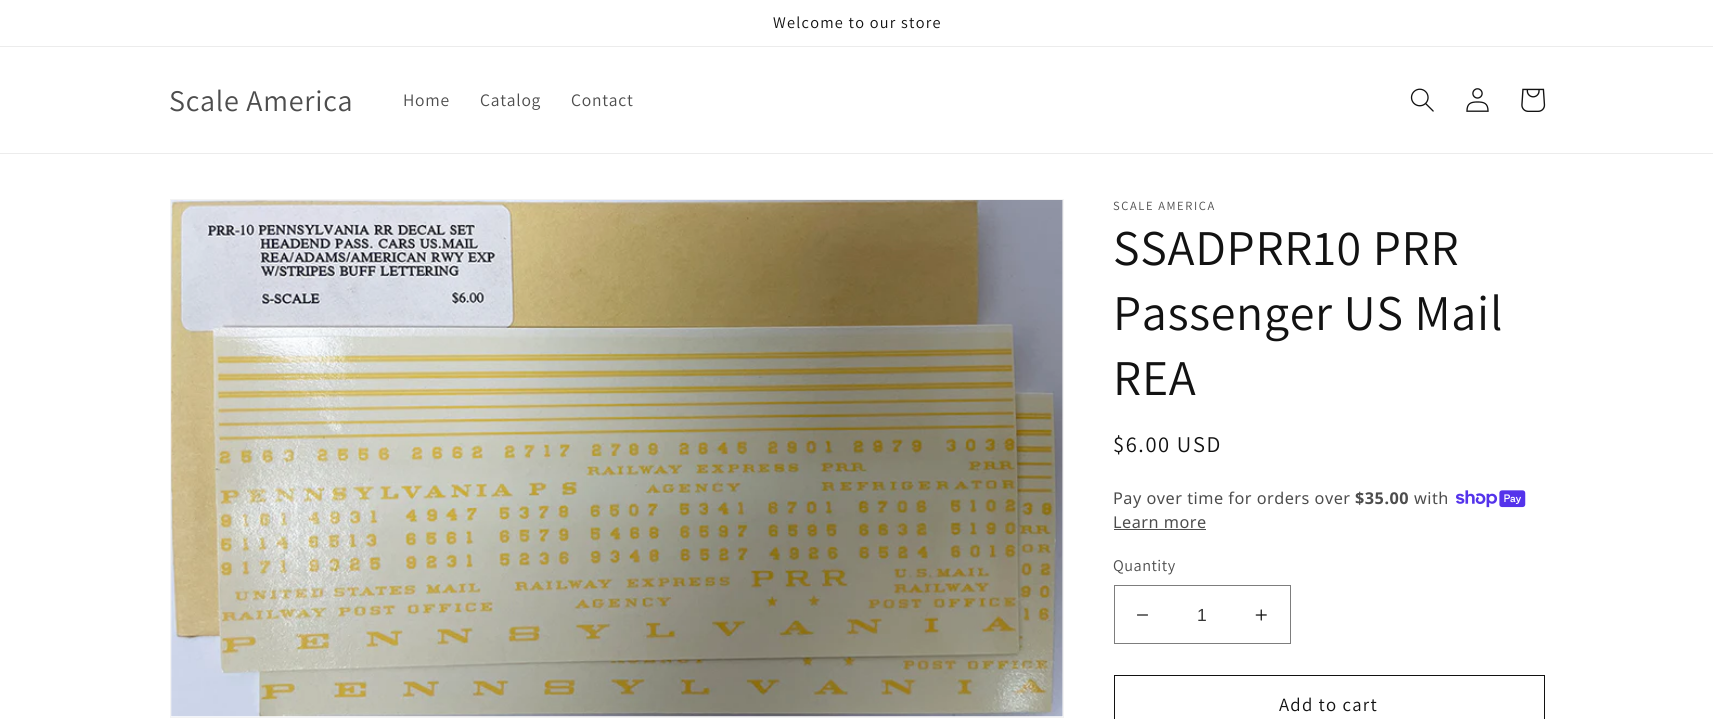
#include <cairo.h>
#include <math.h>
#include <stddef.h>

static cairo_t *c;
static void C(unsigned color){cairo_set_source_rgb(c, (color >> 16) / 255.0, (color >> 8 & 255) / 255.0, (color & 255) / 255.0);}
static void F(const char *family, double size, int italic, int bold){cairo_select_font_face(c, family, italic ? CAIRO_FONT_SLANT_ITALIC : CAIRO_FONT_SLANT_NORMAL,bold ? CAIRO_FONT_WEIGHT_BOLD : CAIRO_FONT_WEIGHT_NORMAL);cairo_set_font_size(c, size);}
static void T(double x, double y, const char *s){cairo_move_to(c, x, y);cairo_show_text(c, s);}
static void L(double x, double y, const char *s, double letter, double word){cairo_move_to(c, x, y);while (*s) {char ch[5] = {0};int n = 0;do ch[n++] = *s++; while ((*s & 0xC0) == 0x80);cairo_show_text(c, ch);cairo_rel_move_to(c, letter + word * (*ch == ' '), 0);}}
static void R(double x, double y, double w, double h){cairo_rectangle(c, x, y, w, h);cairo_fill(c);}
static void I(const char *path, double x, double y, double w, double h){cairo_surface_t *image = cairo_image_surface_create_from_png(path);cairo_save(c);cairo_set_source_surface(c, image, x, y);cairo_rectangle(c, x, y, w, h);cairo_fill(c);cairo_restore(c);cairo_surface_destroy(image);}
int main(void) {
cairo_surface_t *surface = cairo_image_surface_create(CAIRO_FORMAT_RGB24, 1713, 719);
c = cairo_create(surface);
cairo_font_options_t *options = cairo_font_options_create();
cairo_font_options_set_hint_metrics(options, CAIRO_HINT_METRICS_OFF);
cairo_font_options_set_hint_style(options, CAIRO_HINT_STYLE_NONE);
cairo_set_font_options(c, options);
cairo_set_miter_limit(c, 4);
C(0xffffff);
cairo_paint(c);
C(0xececec);
R(0,46,1713,1);
F("Assistant",16.25,0,0);
C(0x121212);
L(773,28,"Welcome to our store",1.25,0);
C(0xececec);
R(0,153,1713,1);
F("Assistant",30,0,0);
C(0x4d4d4d);
L(169,111,"Scale America",.75,0);
F("Assistant",17.5,0,0);
L(403,106,"Home",.75,0);
L(480,106,"Catalog",.75,0);
L(571,106,"Contact",.75,0);
I("1.png",1410,88,24,24);
I("2.png",1466,88,23,24);
I("3.png",1521,88,25,24);
cairo_rectangle(c,170.5,199.5,893,518);
C(0xf3f3f3);
cairo_set_line_width(c,1);
cairo_stroke(c);
I("4.png",171,200,892,517);
F("Assistant",12.5,0,0);
C(0x4d4d4d);
L(1113,210,"SCALE AMERICA",1.6,0);
F("Assistant",50,0,0);
C(0x121212);
L(1113,265,"SSADPRR10 PRR",.75,0);
L(1113,330,"Passenger US Mail",.75,0);
L(1113,395,"REA",.75,0);
F("Assistant",22.5,0,0);
L(1113,452,"$6.00 USD",1.6,0);
F("Noto Sans",16.25,0,0);
C(0x4d4d4d);
L(1113,504,"Pay over time for orders over",.5,0);
F("Noto Sans",16.25,0,1);
L(1355,504,"$35.00",.5,0);
F("Noto Sans",16.25,0,0);
L(1414,504,"with",.5,0);
I("5.png",1456,490,70,18);
L(1113,528,"Learn more",.5,0);
R(1114,529,92,1);
F("Assistant",16.25,0,0);
L(1113,571,"Quantity",.5,0);
I("6.png",1137,614,11,2);
I("7.png",1255,609,12,12);
cairo_rectangle(c,1114.5,585.5,176,58);
C(0x7d7d7d);
cairo_stroke(c);
F("Liberation Sans",17.5,0,0);
C(0x363636);
T(1197,621,"1");
cairo_rectangle(c,1114.5,675.5,430,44);
C(0x121212);
cairo_stroke(c);
F("Assistant",18.75,0,0);
L(1279,711,"Add to cart",1.25,0);
cairo_surface_write_to_png(surface, "o.png");
cairo_font_options_destroy(options);
cairo_destroy(c);
cairo_surface_destroy(surface);
return 0;
}
